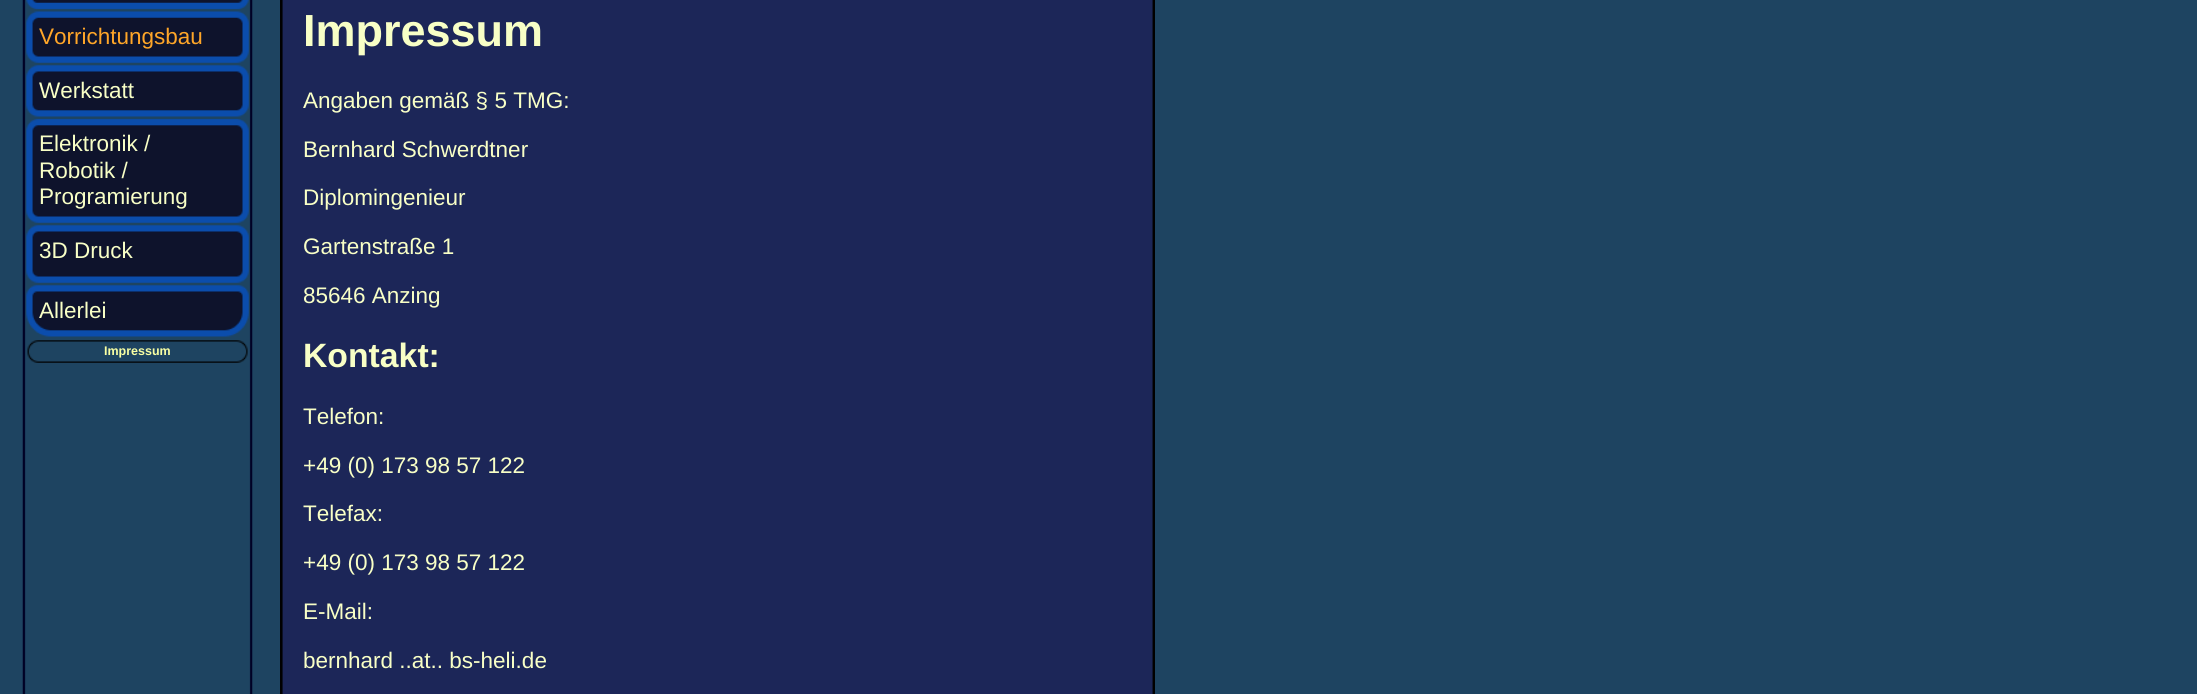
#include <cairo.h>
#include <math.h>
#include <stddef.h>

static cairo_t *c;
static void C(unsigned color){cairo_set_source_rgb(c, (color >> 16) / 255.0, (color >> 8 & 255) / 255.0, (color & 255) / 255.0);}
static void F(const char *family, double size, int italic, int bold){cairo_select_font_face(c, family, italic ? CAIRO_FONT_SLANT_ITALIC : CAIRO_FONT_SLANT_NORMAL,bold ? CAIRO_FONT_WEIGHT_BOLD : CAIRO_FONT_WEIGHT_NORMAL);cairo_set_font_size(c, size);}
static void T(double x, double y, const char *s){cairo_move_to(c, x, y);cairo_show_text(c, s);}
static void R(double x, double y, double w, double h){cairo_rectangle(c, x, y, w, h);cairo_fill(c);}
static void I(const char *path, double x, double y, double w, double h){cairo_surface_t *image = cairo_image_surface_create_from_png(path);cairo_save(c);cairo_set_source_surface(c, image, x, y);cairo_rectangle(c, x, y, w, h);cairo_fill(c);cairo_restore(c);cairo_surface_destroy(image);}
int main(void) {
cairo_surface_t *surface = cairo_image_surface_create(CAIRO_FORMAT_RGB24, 2197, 694);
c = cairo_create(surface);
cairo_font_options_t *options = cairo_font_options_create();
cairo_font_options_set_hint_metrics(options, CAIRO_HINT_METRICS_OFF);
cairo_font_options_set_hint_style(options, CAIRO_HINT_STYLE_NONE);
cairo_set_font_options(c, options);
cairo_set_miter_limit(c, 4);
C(0x1e4461);
cairo_paint(c);
I("1.png",22,0,4,694);
I("2.png",26,0,223,10);
I("3.png",249,0,4,694);
I("4.png",26,11,223,52);
F("Liberation Sans",22.5,0,0);
C(0xffa628);
T(39,44,"Vorrichtungsbau");
I("5.png",26,65,223,52);
C(0xf8ffc6);
T(39,98,"Werkstatt");
I("6.png",26,118,223,105);
T(39,151,"Elektronik /");
T(39,178,"Robotik /");
T(39,204,"Programierung");
I("7.png",26,225,223,58);
T(39,258,"3D Druck");
I("8.png",26,285,223,52);
T(39,318,"Allerlei");
I("9.png",27,340,221,23);
F("Liberation Sans",12.5,0,1);
C(0xf8ffa3);
T(104,355,"Impressum");
I("10.png",280,0,37,694);
C(0x1c2658);
R(317,0,801,694);
I("11.png",1118,0,37,694);
F("Liberation Sans",45,0,1);
C(0xf8ffc6);
T(303,46,"Impressum");
F("Liberation Sans",22.5,0,0);
T(303,108,"Angaben gemäß § 5 TMG:");
T(303,157,"Bernhard Schwerdtner");
T(303,205,"Diplomingenieur");
T(303,254,"Gartenstraße 1");
T(303,303,"85646 Anzing");
F("Liberation Sans",33.75,0,1);
T(303,367,"Kontakt:");
F("Liberation Sans",22.5,0,0);
T(303,424,"Telefon:");
T(303,473,"+49 (0) 173 98 57 122");
T(303,521,"Telefax:");
T(303,570,"+49 (0) 173 98 57 122");
T(303,619,"E-Mail:");
T(303,668,"bernhard ..at.. bs-heli.de");
cairo_surface_write_to_png(surface, "o.png");
cairo_font_options_destroy(options);
cairo_destroy(c);
cairo_surface_destroy(surface);
return 0;
}
